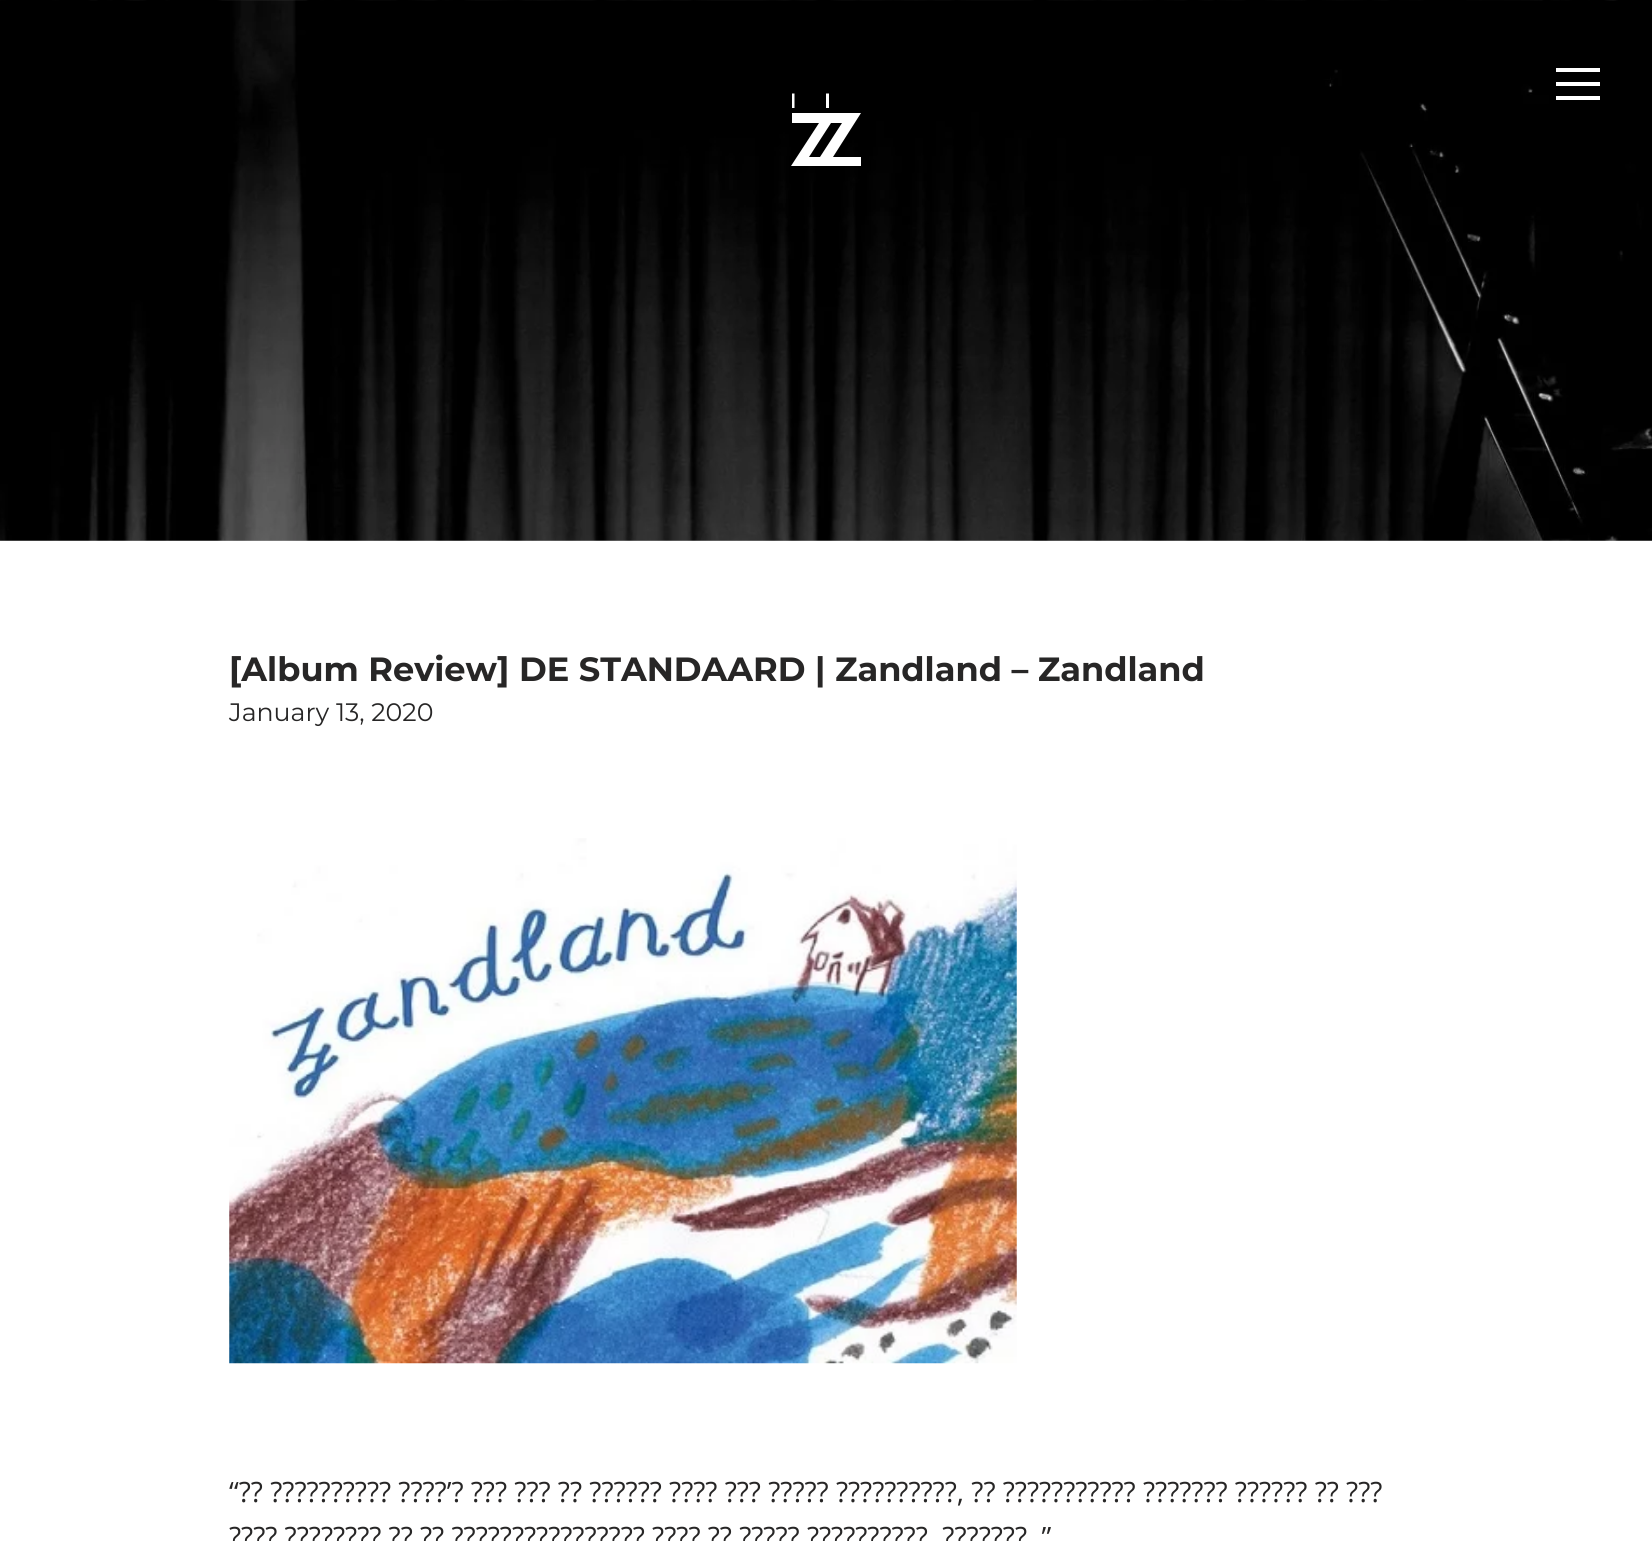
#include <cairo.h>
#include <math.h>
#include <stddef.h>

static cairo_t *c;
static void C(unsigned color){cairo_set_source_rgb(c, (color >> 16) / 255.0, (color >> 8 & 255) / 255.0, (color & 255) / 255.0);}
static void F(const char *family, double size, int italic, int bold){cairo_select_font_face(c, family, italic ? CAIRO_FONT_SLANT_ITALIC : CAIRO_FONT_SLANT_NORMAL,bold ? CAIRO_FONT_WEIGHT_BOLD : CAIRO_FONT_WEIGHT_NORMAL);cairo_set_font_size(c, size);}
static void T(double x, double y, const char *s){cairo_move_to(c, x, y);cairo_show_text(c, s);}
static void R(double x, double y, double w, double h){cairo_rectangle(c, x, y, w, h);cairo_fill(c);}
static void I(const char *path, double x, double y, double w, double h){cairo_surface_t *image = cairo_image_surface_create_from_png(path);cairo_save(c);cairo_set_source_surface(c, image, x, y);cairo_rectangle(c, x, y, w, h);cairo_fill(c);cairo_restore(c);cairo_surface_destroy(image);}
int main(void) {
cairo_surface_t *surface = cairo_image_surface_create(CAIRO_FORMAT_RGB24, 1652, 1541);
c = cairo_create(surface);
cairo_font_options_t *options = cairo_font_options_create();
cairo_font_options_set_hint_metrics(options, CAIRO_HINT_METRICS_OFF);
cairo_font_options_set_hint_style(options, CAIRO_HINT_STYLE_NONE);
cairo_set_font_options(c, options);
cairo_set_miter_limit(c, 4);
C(0xffffff);
cairo_paint(c);
I("1.png",0,0,1652,541);
C(0xffffff);
R(1556,68,44,4);
R(1556,82,44,4);
R(1556,96,44,4);
cairo_new_path(c);
cairo_move_to(c,794,108);
cairo_line_to(c,794.5,108);
cairo_line_to(c,794.5,93.5);
cairo_line_to(c,792,93.5);
cairo_line_to(c,792,108);
cairo_line_to(c,792.5,108);
cairo_close_path(c);
cairo_move_to(c,829,108);
cairo_line_to(c,829,93.5);
cairo_line_to(c,826,93.5);
cairo_line_to(c,826,108);
cairo_line_to(c,828.5,108);
cairo_close_path(c);
cairo_fill(c);
cairo_new_path(c);
cairo_move_to(c,831,123);
cairo_line_to(c,842,123);
cairo_line_to(c,820,157);
cairo_line_to(c,809,157);
cairo_close_path(c);
cairo_move_to(c,838,113);
cairo_line_to(c,792,113);
cairo_line_to(c,792,123);
cairo_line_to(c,819,123);
cairo_line_to(c,791,166);
cairo_line_to(c,861,166);
cairo_line_to(c,861,157);
cairo_line_to(c,833,157);
cairo_line_to(c,861,113);
cairo_close_path(c);
cairo_fill(c);
F("Montserrat",33.6,0,1);
C(0x272626);
T(229,681,"[Album Review] DE STANDAARD | Zandland – Zandland");
F("Montserrat",25.25,0,0);
T(229,721,"January 13, 2020");
I("2.png",229,838,788,526);
F("Open Sans",28,0,0);
T(229,1502,"“?\077 ?\077?\077?\077?\077?\077 ?\077?\077’? ?\077? ?\077? ?\077 ?\077?\077?\077 ?\077?\077 ?\077? ?\077?\077? ?\077?\077?\077?\077?\077, ?\077 ?\077?\077?\077?\077?\077? ?\077?\077?\077? ?\077?\077?\077 ?\077 ?\077?");
T(229,1547,"?\077?\077 ?\077?\077?\077?\077 ?\077 ?\077 ?\077?\077?\077?\077?\077?\077?\077?\077 ?\077?\077 ?\077 ?\077?\077? ?\077?\077?\077?\077?\077. ?\077?\077?\077?. ”");
cairo_surface_write_to_png(surface, "o.png");
cairo_font_options_destroy(options);
cairo_destroy(c);
cairo_surface_destroy(surface);
return 0;
}
